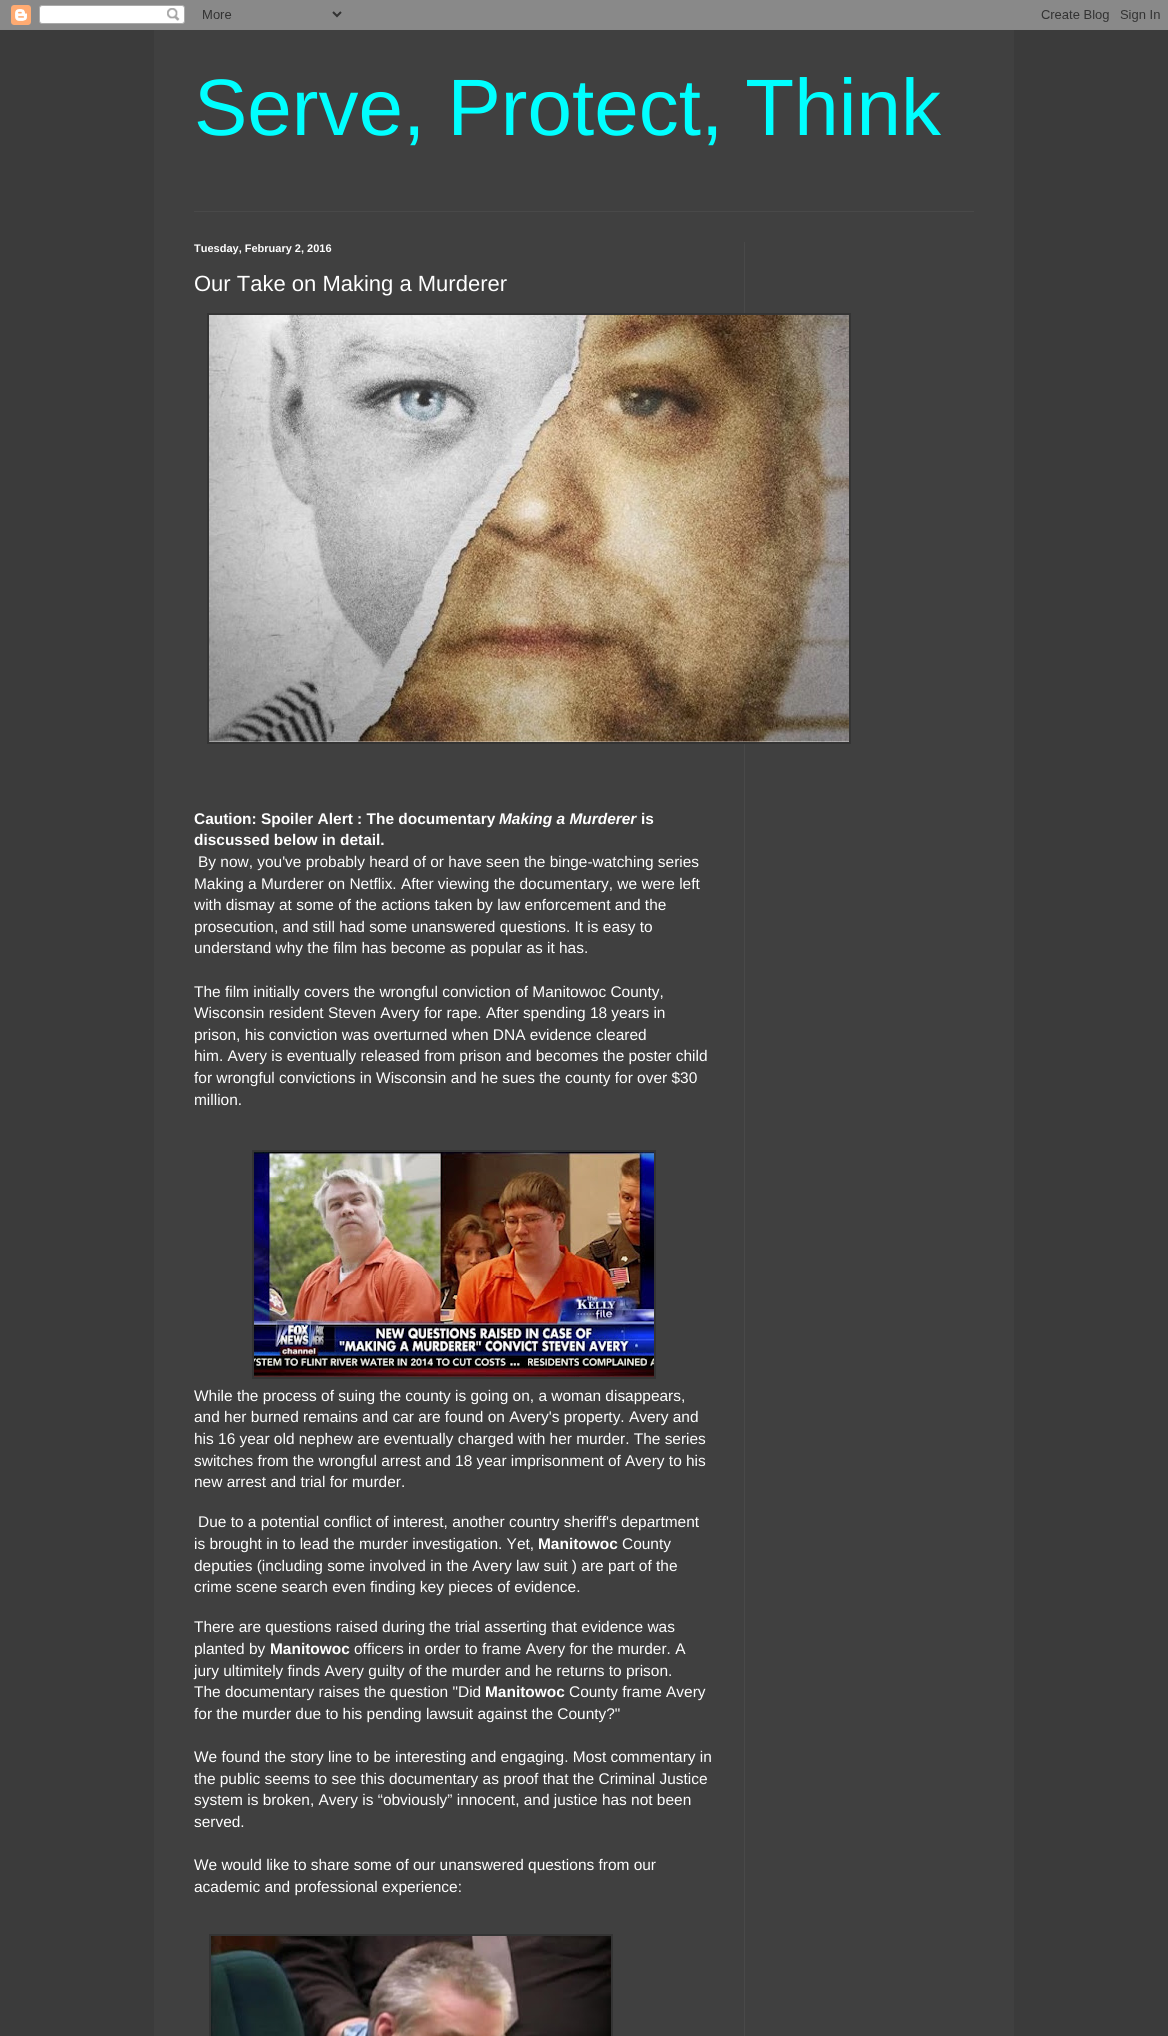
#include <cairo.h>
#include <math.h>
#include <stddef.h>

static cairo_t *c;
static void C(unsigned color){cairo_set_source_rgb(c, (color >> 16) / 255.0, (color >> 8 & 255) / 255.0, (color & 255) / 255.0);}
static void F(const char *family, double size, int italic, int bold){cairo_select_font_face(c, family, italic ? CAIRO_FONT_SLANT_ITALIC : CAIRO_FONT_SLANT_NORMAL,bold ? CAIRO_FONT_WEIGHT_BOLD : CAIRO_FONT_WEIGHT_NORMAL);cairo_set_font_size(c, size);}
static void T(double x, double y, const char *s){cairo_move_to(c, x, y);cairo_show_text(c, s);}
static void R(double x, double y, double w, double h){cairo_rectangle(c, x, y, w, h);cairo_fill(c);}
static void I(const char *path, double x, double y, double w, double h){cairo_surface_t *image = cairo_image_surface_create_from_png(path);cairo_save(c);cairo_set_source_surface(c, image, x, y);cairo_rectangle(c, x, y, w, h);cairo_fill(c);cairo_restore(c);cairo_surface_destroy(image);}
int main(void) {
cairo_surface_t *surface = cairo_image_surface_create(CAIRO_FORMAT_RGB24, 1168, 2036);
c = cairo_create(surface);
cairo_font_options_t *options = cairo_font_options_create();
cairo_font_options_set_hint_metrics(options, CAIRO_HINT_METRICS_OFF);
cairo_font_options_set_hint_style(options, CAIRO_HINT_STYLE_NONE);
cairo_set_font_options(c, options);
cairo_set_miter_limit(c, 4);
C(0x3b3b3b);
cairo_paint(c);
I("1.png",0,0,1168,30);
C(0x404040);
R(154,30,860,2006);
F("Liberation Sans",80,0,0);
C(0x00ffff);
T(194,135,"Serve, Protect, Think");
C(0x494949);
R(194,211,780,1);
F("Liberation Sans",11,0,1);
C(0xffffff);
T(194,252,"Tuesday, February 2, 2016");
F("Liberation Sans",22,0,0);
T(194,291,"Our Take on Making a Murderer");
C(0x494949);
R(744,242,1,1794);
C(0x343434);
R(207,313,644,431);
I("2.png",209,315,640,427);
F("Liberation Sans",15.45,0,1);
C(0xffffff);
T(194,824,"Caution: Spoiler Alert : The documentary");
F("Liberation Sans",15.45,1,1);
T(499,824,"Making a Murderer");
F("Liberation Sans",15.45,0,1);
T(641,824,"is");
T(194,845,"discussed below in detail.");
F("Liberation Sans",15.45,0,0);
T(198,867,"By now, you've probably heard of or have seen the binge-watching series");
T(194,889,"Making a Murderer on Netflix. After viewing the documentary, we were left");
T(194,910,"with dismay at some of the actions taken by law enforcement and the");
T(194,932,"prosecution, and still had some unanswered questions. It is easy to");
T(194,953,"understand why the film has become as popular as it has.");
T(194,997,"The film initially covers the wrongful conviction of Manitowoc County,");
T(194,1018,"Wisconsin resident Steven Avery for rape. After spending 18 years in");
T(194,1040,"prison, his conviction was overturned when DNA evidence cleared");
T(194,1061,"him. Avery is eventually released from prison and becomes the poster child");
T(194,1083,"for wrongful convictions in Wisconsin and he sues the county for over $30");
T(194,1105,"million.");
C(0x343434);
R(252,1150,404,229);
I("3.png",254,1152,400,225);
C(0xffffff);
T(194,1401,"While the process of suing the county is going on, a woman disappears,");
T(194,1422,"and her burned remains and car are found on Avery's property. Avery and");
T(194,1444,"his 16 year old nephew are eventually charged with her murder. The series");
T(194,1466,"switches from the wrongful arrest and 18 year imprisonment of Avery to his");
T(194,1487,"new arrest and trial for murder.");
T(198,1527,"Due to a potential conflict of interest, another country sheriff's department");
T(194,1549,"is brought in to lead the murder investigation. Yet,");
F("Liberation Sans",15.45,0,1);
T(538,1549,"Manitowoc");
F("Liberation Sans",15.45,0,0);
T(622,1549,"County");
T(194,1571,"deputies (including some involved in the Avery law suit ) are part of the");
T(194,1592,"crime scene search even finding key pieces of evidence.");
T(194,1632,"There are questions raised during the trial asserting that evidence was");
T(194,1654,"planted by");
F("Liberation Sans",15.45,0,1);
T(270,1654,"Manitowoc");
F("Liberation Sans",15.45,0,0);
T(354,1654,"officers in order to frame Avery for the murder. A");
T(194,1676,"jury ultimitely finds Avery guilty of the murder and he returns to prison.");
T(194,1697,"The documentary raises the question \"Did");
F("Liberation Sans",15.45,0,1);
T(485,1697,"Manitowoc");
F("Liberation Sans",15.45,0,0);
T(569,1697,"County frame Avery");
T(194,1719,"for the murder due to his pending lawsuit against the County?\"");
T(194,1762,"We found the story line to be interesting and engaging. Most commentary in");
T(194,1784,"the public seems to see this documentary as proof that the Criminal Justice");
T(194,1805,"system is broken, Avery is “obviously” innocent, and justice has not been");
T(194,1827,"served.");
T(194,1870,"We would like to share some of our unanswered questions from our");
T(194,1892,"academic and professional experience:");
C(0x343434);
R(209,1934,404,102);
I("4.png",211,1936,400,100);
cairo_surface_write_to_png(surface, "o.png");
cairo_font_options_destroy(options);
cairo_destroy(c);
cairo_surface_destroy(surface);
return 0;
}
